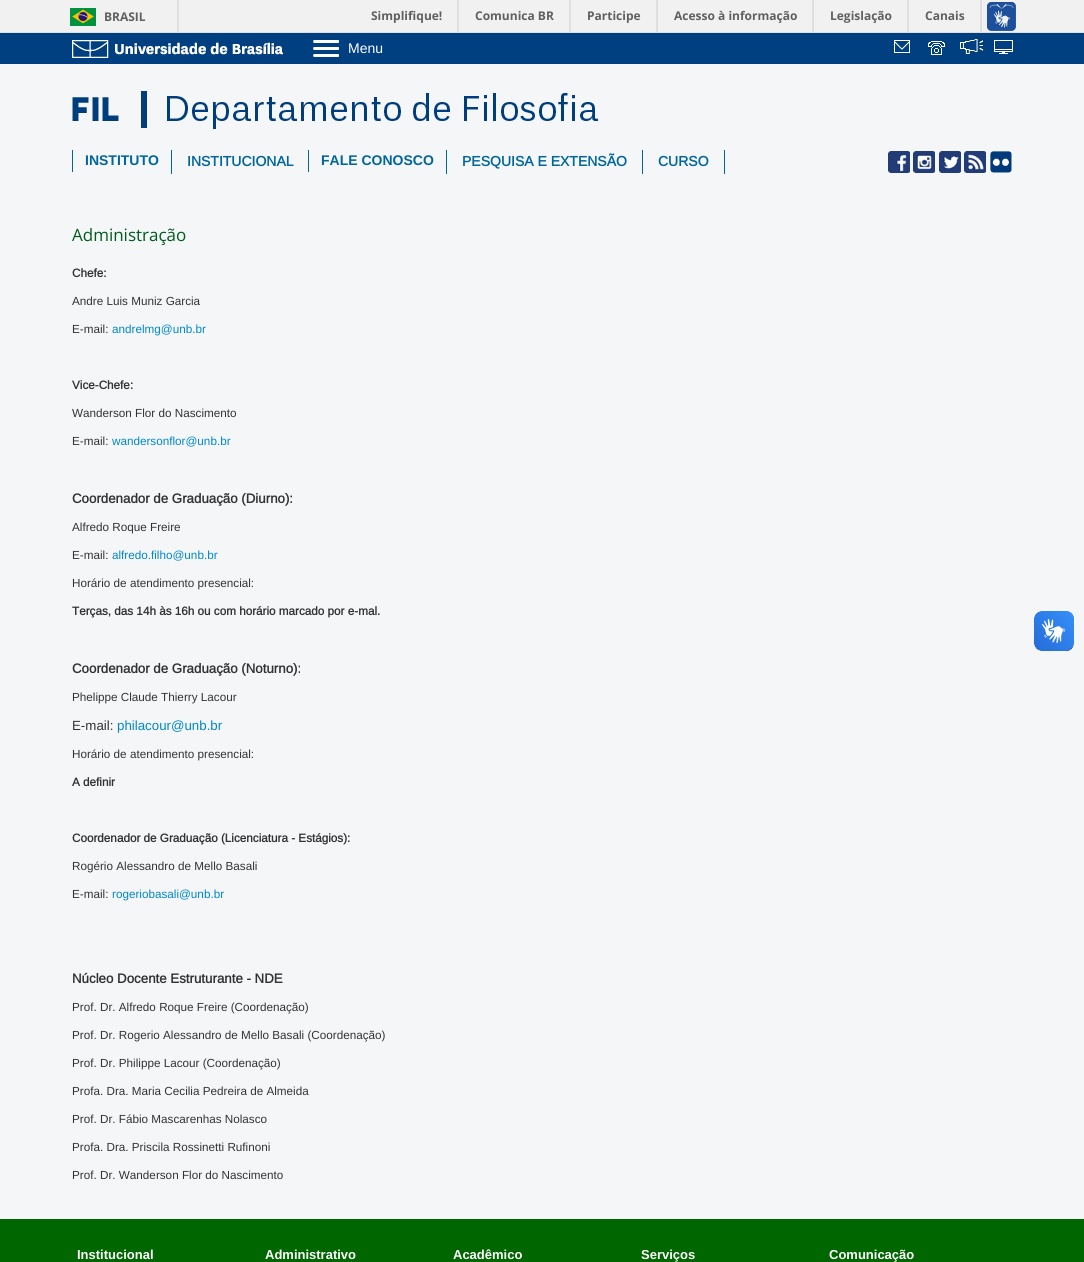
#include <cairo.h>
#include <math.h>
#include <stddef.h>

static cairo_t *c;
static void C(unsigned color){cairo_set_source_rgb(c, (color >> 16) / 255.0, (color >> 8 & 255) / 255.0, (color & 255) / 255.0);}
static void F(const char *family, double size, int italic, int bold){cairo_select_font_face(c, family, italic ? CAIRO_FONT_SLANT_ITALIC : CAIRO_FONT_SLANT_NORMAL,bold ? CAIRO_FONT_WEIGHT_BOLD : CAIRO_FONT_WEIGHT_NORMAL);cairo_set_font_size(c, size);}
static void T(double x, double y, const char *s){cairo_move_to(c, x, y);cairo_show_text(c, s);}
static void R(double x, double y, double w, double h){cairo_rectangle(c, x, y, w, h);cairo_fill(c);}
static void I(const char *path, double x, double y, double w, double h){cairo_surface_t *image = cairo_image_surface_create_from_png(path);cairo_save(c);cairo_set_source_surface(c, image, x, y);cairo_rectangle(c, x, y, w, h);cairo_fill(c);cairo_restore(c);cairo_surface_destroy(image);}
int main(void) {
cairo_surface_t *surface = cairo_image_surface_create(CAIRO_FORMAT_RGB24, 1084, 1262);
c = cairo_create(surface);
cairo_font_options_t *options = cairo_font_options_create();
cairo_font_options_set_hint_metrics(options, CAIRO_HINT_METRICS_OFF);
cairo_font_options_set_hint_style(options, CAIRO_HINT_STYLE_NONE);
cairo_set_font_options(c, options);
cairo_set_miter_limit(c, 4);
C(0xf4f6f7);
cairo_paint(c);
C(0xf1f1f1);
R(0,0,1084,32);
C(0xdfdfdf);
R(0,32,1084,1);
R(177,0,2,32);
I("1.png",70,8,26,18);
F("Open Sans",12,0,1);
C(0x606060);
T(104,21,"BRASIL");
C(0xdfdfdf);
R(457,0,2,32);
C(0x606060);
T(371,20,"Simplifique!");
C(0xdfdfdf);
R(569,0,2,32);
C(0x606060);
T(475,20,"Comunica BR");
C(0xdfdfdf);
R(656,0,2,32);
C(0x606060);
T(587,20,"Participe");
C(0xdfdfdf);
R(812,0,2,32);
C(0x606060);
T(674,20,"Acesso à informação");
C(0xdfdfdf);
R(907,0,2,32);
C(0x606060);
T(830,20,"Legislação");
C(0xdfdfdf);
R(980,0,2,32);
C(0x606060);
T(925,20,"Canais");
I("2.png",987,2,29,29);
C(0x004080);
R(0,33,1084,31);
I("3.png",72,40,211,18);
I("4.png",313,40,26,17);
F("Liberation Sans",14,0,0);
C(0xffffff);
T(348,53,"Menu");
I("5.png",894,40,16,13);
I("6.png",928,41,17,14);
I("7.png",960,39,23,15);
I("8.png",994,40,19,14);
I("9.png",72,91,526,38);
C(0x00669c);
R(72,150,1,22);
F("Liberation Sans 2",14,0,1);
T(85,165,"INSTITUTO");
R(171,150,1,24);
F("Liberation Sans",14,0,1);
T(187,166,"INSTITUCIONAL");
R(308,150,1,22);
F("Liberation Sans 2",14,0,1);
T(321,165,"FALE CONOSCO");
R(446,150,1,24);
F("Liberation Sans",14,0,1);
T(462,166,"PESQUISA E EXTENSÃO");
R(724,150,1,24);
R(642,150,1,24);
T(658,166,"CURSO");
I("10.png",888,151,22,22);
I("11.png",913,151,22,22);
I("12.png",939,151,22,22);
I("13.png",964,151,22,22);
I("14.png",990,151,22,22);
F("Open Sans",17,0,0);
C(0x005a1c);
T(72,241,"Administração");
F("Liberation Sans",11.7,0,1);
C(0x333333);
T(72,277,"Chefe:");
F("Liberation Sans",11.7,0,0);
T(72,305,"Andre Luis Muniz Garcia");
T(72,333,"E-mail:");
C(0x0088cc);
T(112,333,"andrelmg@unb.br");
F("Liberation Sans",11.7,0,1);
C(0x333333);
T(72,389,"Vice-Chefe:");
F("Liberation Sans",11.7,0,0);
T(72,417,"Wanderson Flor do Nascimento");
T(72,445,"E-mail:");
C(0x0088cc);
T(112,445,"wandersonflor@unb.br");
F("Liberation Sans",13.3,0,1);
C(0x333333);
T(72,503,"Coordenador de Graduação (Diurno):");
F("Liberation Sans",11.7,0,0);
T(72,531,"Alfredo Roque Freire");
T(72,559,"E-mail:");
C(0x0088cc);
T(112,559,"alfredo.filho@unb.br");
C(0x333333);
T(72,587,"Horário de atendimento presencial:");
F("Liberation Sans",11.7,0,1);
T(72,615,"Terças, das 14h às 16h ou com horário marcado por e-mal.");
F("Liberation Sans",13.3,0,1);
T(72,673,"Coordenador de Graduação (Noturno):");
F("Liberation Sans",11.7,0,0);
T(72,701,"Phelippe Claude Thierry Lacour");
F("Liberation Sans",13.3,0,0);
T(72,730,"E-mail:");
C(0x0088cc);
T(117,730,"philacour@unb.br");
F("Liberation Sans",11.7,0,0);
C(0x333333);
T(72,758,"Horário de atendimento presencial:");
F("Liberation Sans",11.7,0,1);
T(72,786,"A definir");
T(72,842,"Coordenador de Graduação (Licenciatura - Estágios):");
F("Liberation Sans",11.7,0,0);
T(72,870,"Rogério Alessandro de Mello Basali");
T(72,898,"E-mail:");
C(0x0088cc);
T(112,898,"rogeriobasali@unb.br");
F("Liberation Sans",13.3,0,1);
C(0x333333);
T(72,983,"Núcleo Docente Estruturante - NDE");
F("Liberation Sans",11.7,0,0);
T(72,1011,"Prof. Dr. Alfredo Roque Freire (Coordenação)");
T(72,1039,"Prof. Dr. Rogerio Alessandro de Mello Basali (Coordenação)");
T(72,1067,"Prof. Dr. Philippe Lacour (Coordenação)");
T(72,1095,"Profa. Dra. Maria Cecilia Pedreira de Almeida");
T(72,1123,"Prof. Dr. Fábio Mascarenhas Nolasco");
T(72,1151,"Profa. Dra. Priscila Rossinetti Rufinoni");
T(72,1179,"Prof. Dr. Wanderson Flor do Nascimento");
I("15.png",1034,611,40,40);
I("16.png",1034,611,40,40);
C(0x006600);
R(0,1219,1084,43);
F("Liberation Sans 2",13,0,1);
C(0xffffff);
T(77,1259,"Institucional");
T(265,1259,"Administrativo");
T(453,1259,"Acadêmico");
T(641,1259,"Serviços");
T(829,1259,"Comunicação");
cairo_surface_write_to_png(surface, "o.png");
cairo_font_options_destroy(options);
cairo_destroy(c);
cairo_surface_destroy(surface);
return 0;
}
